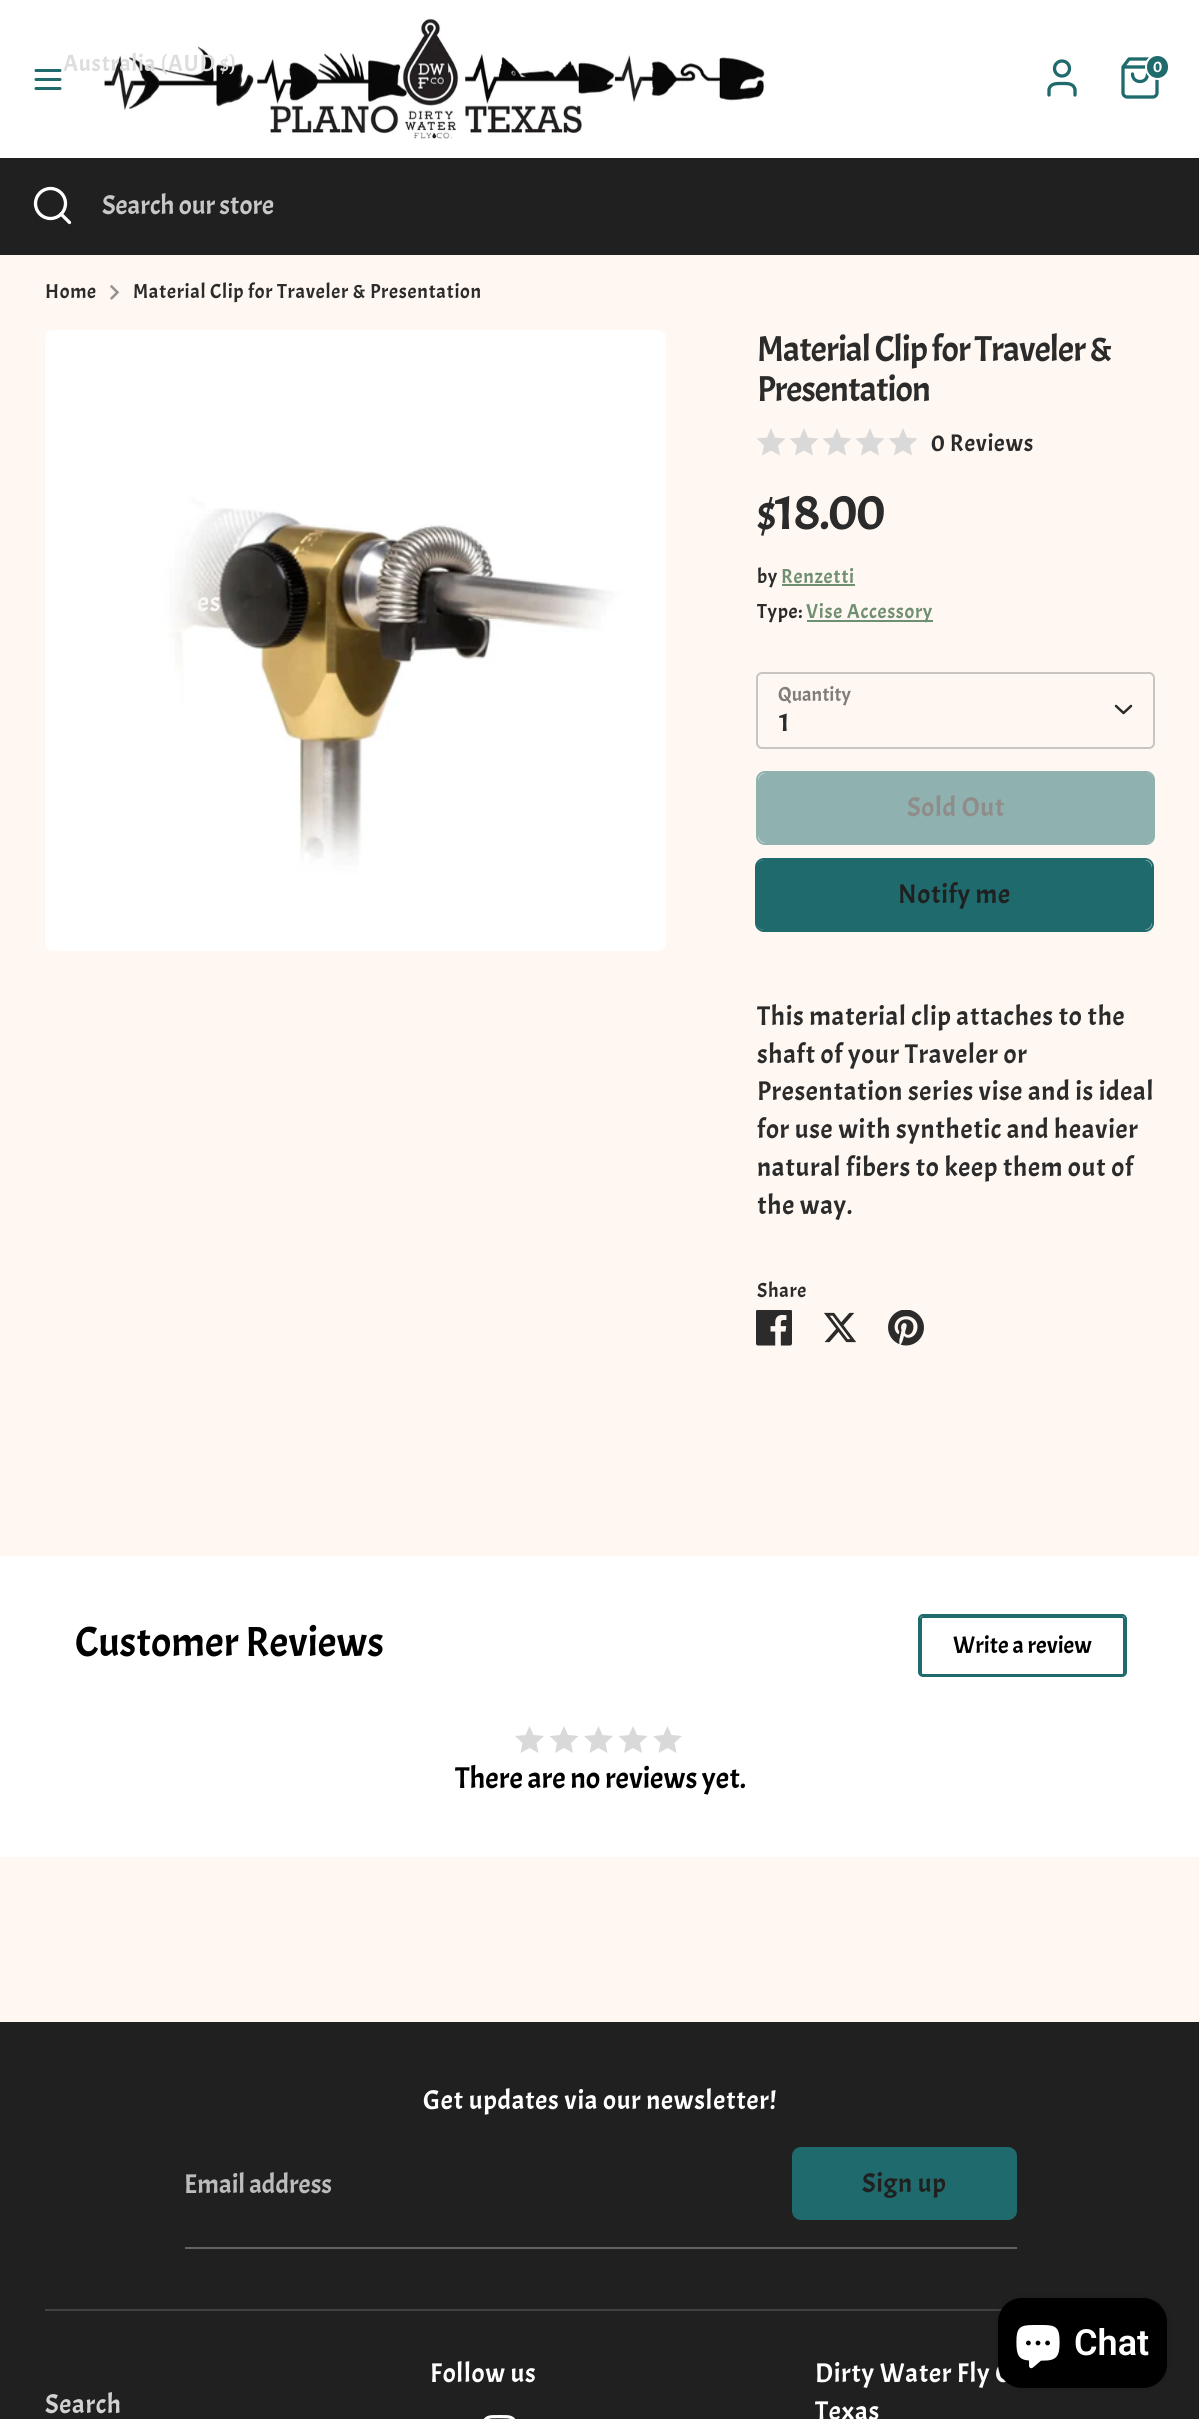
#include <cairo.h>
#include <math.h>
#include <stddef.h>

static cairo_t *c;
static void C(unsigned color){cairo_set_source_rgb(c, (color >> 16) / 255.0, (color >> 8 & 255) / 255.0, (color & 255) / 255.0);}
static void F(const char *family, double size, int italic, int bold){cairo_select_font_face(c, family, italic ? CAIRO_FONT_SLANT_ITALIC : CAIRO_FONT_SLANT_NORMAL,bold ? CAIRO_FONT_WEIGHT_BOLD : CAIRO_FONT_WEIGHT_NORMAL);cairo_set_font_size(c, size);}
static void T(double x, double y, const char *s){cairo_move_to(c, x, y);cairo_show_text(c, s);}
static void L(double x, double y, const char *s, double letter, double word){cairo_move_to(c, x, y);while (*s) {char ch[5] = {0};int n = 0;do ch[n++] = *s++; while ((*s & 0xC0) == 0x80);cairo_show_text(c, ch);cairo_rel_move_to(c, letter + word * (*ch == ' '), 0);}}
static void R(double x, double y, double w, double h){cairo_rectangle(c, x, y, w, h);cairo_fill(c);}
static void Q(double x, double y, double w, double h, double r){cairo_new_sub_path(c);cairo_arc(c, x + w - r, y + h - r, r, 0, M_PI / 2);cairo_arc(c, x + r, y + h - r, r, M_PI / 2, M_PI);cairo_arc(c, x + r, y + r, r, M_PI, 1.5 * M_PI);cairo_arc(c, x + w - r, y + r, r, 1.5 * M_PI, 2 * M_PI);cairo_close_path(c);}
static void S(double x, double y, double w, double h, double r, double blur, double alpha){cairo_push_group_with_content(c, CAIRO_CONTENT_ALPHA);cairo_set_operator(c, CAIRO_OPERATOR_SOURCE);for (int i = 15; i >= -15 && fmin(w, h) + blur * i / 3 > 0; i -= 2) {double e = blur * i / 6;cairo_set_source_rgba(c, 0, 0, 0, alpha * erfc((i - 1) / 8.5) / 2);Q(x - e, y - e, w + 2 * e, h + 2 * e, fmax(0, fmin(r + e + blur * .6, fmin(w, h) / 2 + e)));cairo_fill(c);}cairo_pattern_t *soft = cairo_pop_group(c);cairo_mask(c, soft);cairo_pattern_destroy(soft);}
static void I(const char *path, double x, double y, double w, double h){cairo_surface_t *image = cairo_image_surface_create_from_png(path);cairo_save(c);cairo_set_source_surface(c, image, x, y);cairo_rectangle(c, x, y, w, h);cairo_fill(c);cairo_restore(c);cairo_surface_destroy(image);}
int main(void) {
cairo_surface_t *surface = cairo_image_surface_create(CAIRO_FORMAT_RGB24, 1199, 2419);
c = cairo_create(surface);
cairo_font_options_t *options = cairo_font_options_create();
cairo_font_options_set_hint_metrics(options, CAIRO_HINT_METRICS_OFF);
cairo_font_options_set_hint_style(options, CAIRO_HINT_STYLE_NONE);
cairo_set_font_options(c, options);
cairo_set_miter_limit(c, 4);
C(0xfff8f2);
cairo_paint(c);
C(0xffffff);
R(0,0,1199,158);
I("1.png",104,18,661,121);
F("Acme",23.5,0,0);
C(0xdddddd);
L(63,71,"Australia (AUD $)",.7,0);
I("3.png",45,330,621,621);
F("Acme",27,0,0);
C(0xf8f7f6);
L(197,611,"es",.7,0);
C(0x202020);
R(0,158,1199,97);
cairo_new_path(c);
cairo_arc(c,50.5,203.5,15,0,2 * M_PI);
C(0xffffff);
cairo_set_line_width(c,3.3);
cairo_stroke(c);
cairo_new_path(c);
cairo_move_to(c,69.5,222.5);
cairo_line_to(c,61,214);
cairo_set_line_cap(c,CAIRO_LINE_CAP_ROUND);
cairo_set_line_join(c,CAIRO_LINE_JOIN_ROUND);
cairo_stroke(c);
C(0xc7c7c7);
T(102,214,"Search our store");
cairo_new_path(c);
cairo_move_to(c,1075,95);
cairo_line_to(c,1075,89.5);
cairo_curve_to(c,1073.5,83,1067,83.5,1062,83.5);
cairo_curve_to(c,1057,83.5,1050.5,83,1049,89.5);
cairo_line_to(c,1049,95);
C(0x1f6a6c);
cairo_stroke(c);
cairo_arc(c,1062,68.5,7.5,0,2 * M_PI);
cairo_set_line_cap(c,CAIRO_LINE_CAP_BUTT);
cairo_set_line_join(c,CAIRO_LINE_JOIN_MITER);
cairo_stroke(c);
cairo_new_path(c);
cairo_move_to(c,1129,59);
cairo_line_to(c,1123,67);
cairo_line_to(c,1123,93);
cairo_curve_to(c,1123,95,1125,97,1127,97);
cairo_line_to(c,1153,97);
cairo_curve_to(c,1155,97,1157,95,1157,93);
cairo_line_to(c,1157,67);
cairo_line_to(c,1151,59);
cairo_close_path(c);
cairo_move_to(c,1123,67);
cairo_line_to(c,1157,67);
cairo_move_to(c,1147.5,74);
cairo_curve_to(c,1147.5,84,1132.5,84,1132.5,74);
cairo_set_line_cap(c,CAIRO_LINE_CAP_ROUND);
cairo_set_line_join(c,CAIRO_LINE_JOIN_ROUND);
cairo_stroke(c);
Q(1146,55,23,24,11.5);
cairo_fill_preserve(c);
C(0xffffff);
cairo_set_line_width(c,2);
cairo_set_line_cap(c,CAIRO_LINE_CAP_BUTT);
cairo_set_line_join(c,CAIRO_LINE_JOIN_MITER);
cairo_stroke(c);
F("Acme",16,0,0);
T(1153,72,"0");
cairo_new_path(c);
cairo_move_to(c,36,79.5);
cairo_line_to(c,60,79.5);
cairo_move_to(c,36,70.5);
cairo_line_to(c,60,70.5);
cairo_move_to(c,36,88.5);
cairo_line_to(c,60,88.5);
C(0x1f6a6c);
cairo_set_line_width(c,3);
cairo_set_line_cap(c,CAIRO_LINE_CAP_ROUND);
cairo_set_line_join(c,CAIRO_LINE_JOIN_ROUND);
cairo_stroke(c);
F("Acme",20.25,0,0);
C(0x2b2b2b);
L(45,298,"Home",.7,0);
I("2.png",110,284,10,16);
L(133,298,"Material Clip for Traveler & Presentation",.7,0);
F("Acme",36,0,0);
L(757,361,"Material Clip for Traveler &",-.9,0);
L(757,401,"Presentation",-.9,0);
C(0xd9d9d9);
cairo_new_path(c);
cairo_move_to(c,771,428);
cairo_line_to(c,775,437.5);
cairo_line_to(c,785.5,438.5);
cairo_line_to(c,778,445.5);
cairo_line_to(c,780,455.5);
cairo_line_to(c,771,450.5);
cairo_line_to(c,762,455.5);
cairo_line_to(c,764,445.5);
cairo_line_to(c,756.5,438.5);
cairo_line_to(c,767,437.5);
cairo_close_path(c);
cairo_move_to(c,804,428);
cairo_line_to(c,808,437.5);
cairo_line_to(c,818.5,438.5);
cairo_line_to(c,811,445.5);
cairo_line_to(c,813,455.5);
cairo_line_to(c,804,450.5);
cairo_line_to(c,795,455.5);
cairo_line_to(c,797,445.5);
cairo_line_to(c,789.5,438.5);
cairo_line_to(c,800,437.5);
cairo_close_path(c);
cairo_fill(c);
cairo_new_path(c);
cairo_move_to(c,837,428);
cairo_line_to(c,841,437.5);
cairo_line_to(c,851.5,438.5);
cairo_line_to(c,844,445.5);
cairo_line_to(c,846,455.5);
cairo_line_to(c,837,450.5);
cairo_line_to(c,828,455.5);
cairo_line_to(c,830,445.5);
cairo_line_to(c,822.5,438.5);
cairo_line_to(c,833,437.5);
cairo_close_path(c);
cairo_move_to(c,870,428);
cairo_line_to(c,874,437.5);
cairo_line_to(c,884.5,438.5);
cairo_line_to(c,877,445.5);
cairo_line_to(c,879,455.5);
cairo_line_to(c,870,450.5);
cairo_line_to(c,861,455.5);
cairo_line_to(c,863,445.5);
cairo_line_to(c,855.5,438.5);
cairo_line_to(c,866,437.5);
cairo_close_path(c);
cairo_fill(c);
cairo_new_path(c);
cairo_move_to(c,903,428);
cairo_line_to(c,907,437.5);
cairo_line_to(c,917.5,438.5);
cairo_line_to(c,910,445.5);
cairo_line_to(c,912,455.5);
cairo_line_to(c,903,450.5);
cairo_line_to(c,894,455.5);
cairo_line_to(c,896,445.5);
cairo_line_to(c,888.5,438.5);
cairo_line_to(c,899,437.5);
cairo_close_path(c);
cairo_fill(c);
F("Acme",24,0,0);
C(0x2b2b2b);
L(931,451,"0 Reviews",.7,0);
F("Acme",51,0,0);
L(757,529,"$18.00",-1.25,0);
F("Acme",20.25,0,0);
L(757,583,"by",.7,0);
C(0x6f8f72);
L(781,583,"Renzetti",.7,0);
R(782,584,73,2);
C(0x2b2b2b);
L(757,618,"Type:",.7,0);
C(0x6f8f72);
R(807,620,126,2);
L(806,618,"Vise Accessory",.7,0);
C(0x807d7b);
T(778,701,"Quantity");
Q(757,673,397,75,5);
C(0xcac5c0);
cairo_set_line_width(c,2);
cairo_set_line_cap(c,CAIRO_LINE_CAP_BUTT);
cairo_set_line_join(c,CAIRO_LINE_JOIN_MITER);
cairo_stroke(c);
cairo_new_path(c);
cairo_move_to(c,1116,706);
cairo_line_to(c,1123.5,713);
cairo_line_to(c,1131,706);
C(0x2b2b2b);
cairo_set_line_width(c,2.5);
cairo_set_line_cap(c,CAIRO_LINE_CAP_ROUND);
cairo_set_line_join(c,CAIRO_LINE_JOIN_ROUND);
cairo_stroke(c);
F("Acme",27,0,0);
L(779,731,"1",.7,0);
Q(757,772,397,72,8);
C(0x8fb1af);
cairo_set_line_width(c,2);
cairo_set_line_cap(c,CAIRO_LINE_CAP_BUTT);
cairo_set_line_join(c,CAIRO_LINE_JOIN_MITER);
cairo_stroke(c);
Q(758,773,396,70,8);
cairo_fill(c);
C(0x908c89);
L(907,816,"Sold Out",.7,0);
Q(756,859,397,72,8);
C(0x1f6a6c);
cairo_stroke(c);
Q(756,860,396,70,8);
cairo_fill(c);
C(0x202020);
L(898,903,"Notify me",.7,0);
C(0x2b2b2b);
L(757,1025,"This material clip attaches to the",.7,0);
L(757,1063,"shaft of your Traveler or",.7,0);
L(757,1100,"Presentation series vise and is ideal",.7,0);
L(757,1138,"for use with synthetic and heavier",.7,0);
L(757,1176,"natural fibers to keep them out of",.7,0);
L(757,1214,"the way.",.7,0);
F("Acme",20.25,0,0);
L(757,1297,"Share",.7,0);
I("4.png",756,1310,36,36);
I("5.png",824,1312,33,31);
I("6.png",888,1310,36,36);
C(0xffffff);
R(0,1556,1199,301);
F("Acme",42,0,0);
C(0x000000);
T(75,1656,"Customer Reviews");
Q(919,1615,207,61,4);
C(0x1f6a6c);
cairo_stroke(c);
C(0xffffff);
Q(921,1617,203,58,2);
cairo_fill_preserve(c);
C(0x1f6a6c);
cairo_stroke(c);
F("Acme",24,0,0);
C(0x000000);
T(953,1653,"Write a review");
C(0xd9d9d9);
cairo_new_path(c);
cairo_move_to(c,529.5,1726);
cairo_line_to(c,533.5,1735);
cairo_line_to(c,544,1736);
cairo_line_to(c,536.5,1743);
cairo_line_to(c,538.5,1753);
cairo_line_to(c,529.5,1748);
cairo_line_to(c,520.5,1753);
cairo_line_to(c,522.5,1743);
cairo_line_to(c,515,1736);
cairo_line_to(c,525.5,1735);
cairo_close_path(c);
cairo_fill(c);
cairo_new_path(c);
cairo_move_to(c,564,1726);
cairo_line_to(c,568,1735);
cairo_line_to(c,578.5,1736);
cairo_line_to(c,571,1743);
cairo_line_to(c,573,1753);
cairo_line_to(c,564,1748);
cairo_line_to(c,555,1753);
cairo_line_to(c,557,1743);
cairo_line_to(c,549.5,1736);
cairo_line_to(c,560,1735);
cairo_close_path(c);
cairo_fill(c);
cairo_new_path(c);
cairo_move_to(c,598.5,1726);
cairo_line_to(c,602.5,1735);
cairo_line_to(c,613,1736);
cairo_line_to(c,605.5,1743);
cairo_line_to(c,607.5,1753);
cairo_line_to(c,598.5,1748);
cairo_line_to(c,589.5,1753);
cairo_line_to(c,591.5,1743);
cairo_line_to(c,584,1736);
cairo_line_to(c,594.5,1735);
cairo_close_path(c);
cairo_fill(c);
cairo_new_path(c);
cairo_move_to(c,633,1726);
cairo_line_to(c,637,1735);
cairo_line_to(c,647.5,1736);
cairo_line_to(c,640,1743);
cairo_line_to(c,642,1753);
cairo_line_to(c,633,1748);
cairo_line_to(c,624,1753);
cairo_line_to(c,626,1743);
cairo_line_to(c,618.5,1736);
cairo_line_to(c,629,1735);
cairo_close_path(c);
cairo_fill(c);
cairo_new_path(c);
cairo_move_to(c,667.5,1726);
cairo_line_to(c,671.5,1735);
cairo_line_to(c,682,1736);
cairo_line_to(c,674.5,1743);
cairo_line_to(c,676.5,1753);
cairo_line_to(c,667.5,1748);
cairo_line_to(c,658.5,1753);
cairo_line_to(c,660.5,1743);
cairo_line_to(c,653,1736);
cairo_line_to(c,663.5,1735);
cairo_close_path(c);
cairo_fill(c);
F("Acme",30,0,0);
C(0x000000);
T(455,1788,"There are no reviews yet.");
C(0x202020);
R(0,2022,1199,397);
F("Acme",27,0,0);
C(0xffffff);
L(423,2109,"Get updates via our newsletter!",.7,0);
C(0x636363);
R(185,2247,832,2);
C(0xbcbcbc);
T(184,2193,"Email address");
Q(793,2148,223,71,8);
C(0x1f6a6c);
cairo_stroke(c);
Q(794,2148,222,71,8);
cairo_fill(c);
C(0x202020);
L(862,2192,"Sign up",.7,0);
C(0x414141);
R(45,2309,957,2);
C(0xd2d2d2);
L(45,2413,"Search",.7,0);
C(0xffffff);
L(430,2382,"Follow us",.7,0);
I("7.png",483,2415,33,4);
L(815,2382,"Dirty Water Fly C",.7,0);
L(815,2420,"Texas",.7,0);
C(0x000000);
S(998,2298,169,90,24,4,.15);
C(0x000000);
Q(998,2298,169,90,24);
cairo_fill(c);
I("8.png",1016,2325,44,44);
F("Roboto SemiBold",36,0,0);
C(0xffffff);
T(1074,2355,"Chat");
cairo_surface_write_to_png(surface, "o.png");
cairo_font_options_destroy(options);
cairo_destroy(c);
cairo_surface_destroy(surface);
return 0;
}
